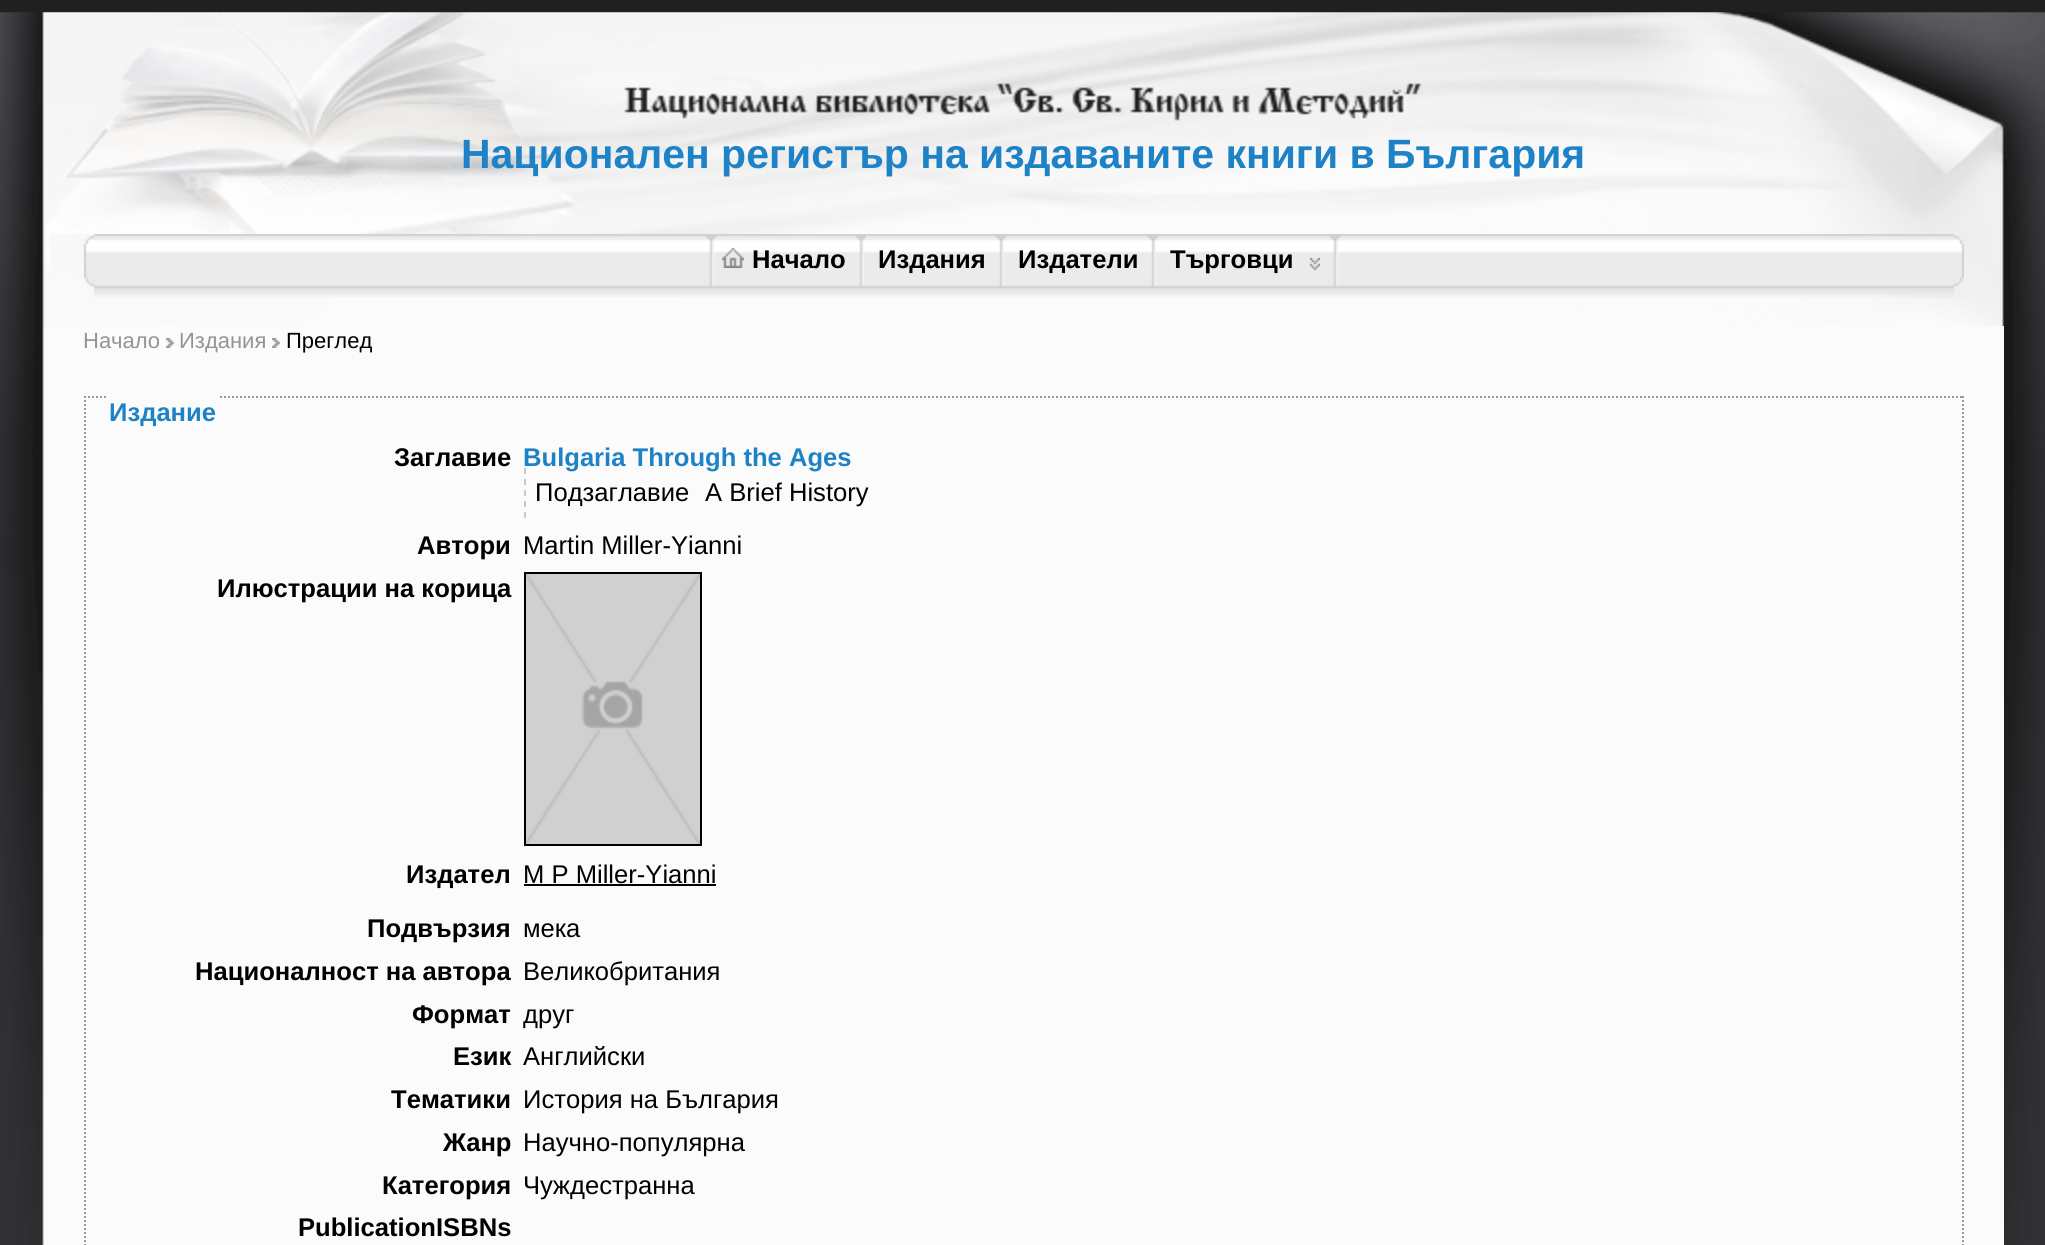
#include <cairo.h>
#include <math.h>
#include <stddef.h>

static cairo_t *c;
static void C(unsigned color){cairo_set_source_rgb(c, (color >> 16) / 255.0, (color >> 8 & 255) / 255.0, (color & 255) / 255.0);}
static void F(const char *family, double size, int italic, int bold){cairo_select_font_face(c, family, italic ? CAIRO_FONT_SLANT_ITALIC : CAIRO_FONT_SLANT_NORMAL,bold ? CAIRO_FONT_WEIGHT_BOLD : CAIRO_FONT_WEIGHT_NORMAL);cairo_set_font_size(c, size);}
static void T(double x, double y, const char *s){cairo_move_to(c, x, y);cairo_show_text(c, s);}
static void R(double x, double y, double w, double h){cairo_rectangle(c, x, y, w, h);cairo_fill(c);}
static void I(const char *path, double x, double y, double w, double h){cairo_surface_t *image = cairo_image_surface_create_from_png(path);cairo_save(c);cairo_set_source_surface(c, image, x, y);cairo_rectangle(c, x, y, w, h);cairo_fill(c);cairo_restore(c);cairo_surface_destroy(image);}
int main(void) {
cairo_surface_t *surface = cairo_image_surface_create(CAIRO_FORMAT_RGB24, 2045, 1245);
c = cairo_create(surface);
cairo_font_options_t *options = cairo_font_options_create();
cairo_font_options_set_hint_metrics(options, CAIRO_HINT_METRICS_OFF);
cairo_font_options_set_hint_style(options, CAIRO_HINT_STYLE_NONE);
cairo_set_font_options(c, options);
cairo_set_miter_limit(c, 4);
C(0xffffff);
cairo_paint(c);
I("1.png",0,12,2045,1233);
C(0x202021);
R(0,0,2045,12);
F("Liberation Sans",40.95,0,1);
C(0x1e82c6);
T(461,168,"Национален регистър на издаваните книги в България");
I("2.png",84,234,1880,64);
I("3.png",706,235,10,53);
I("3.png",856,235,10,53);
I("4.png",722,248,22,20);
F("Liberation Sans",25.6,0,1);
C(0x000000);
T(752,268,"Начало");
I("3.png",996,235,10,53);
T(878,268,"Издания");
I("3.png",1148,235,10,53);
T(1018,268,"Издатели");
I("3.png",1330,235,10,53);
T(1170,268,"Търговци");
I("5.png",1310,258,10,12);
C(0xfbfbfb);
R(44,326,1960,919);
F("Liberation Sans",22,0,0);
C(0x949494);
T(83,348,"Начало");
I("6.png",166,338,8,10);
T(179,348,"Издания");
I("6.png",272,338,8,10);
C(0x000000);
T(286,348,"Преглед");
cairo_new_path(c);
cairo_move_to(c,84,397);
cairo_line_to(c,1964,397);
C(0x999999);
cairo_set_dash(c,(double[]){2,2},2,0);
cairo_stroke(c);
cairo_new_path(c);
cairo_move_to(c,1963,396);
cairo_line_to(c,1963,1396);
cairo_stroke(c);
cairo_new_path(c);
cairo_move_to(c,85,396);
cairo_line_to(c,85,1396);
cairo_stroke(c);
C(0xfbfbfb);
R(108,396,110,2);
F("Liberation Sans",25.6,0,1);
C(0x1e82c6);
T(109,421,"Издание");
C(0x000000);
T(394,466,"Заглавие");
cairo_new_path(c);
cairo_move_to(c,525,468);
cairo_line_to(c,525,518);
C(0xc6c9cf);
cairo_set_dash(c,(double[]){6,5},2,0);
cairo_stroke(c);
C(0x1e82c6);
T(523,466,"Bulgaria Through the Ages");
F("Liberation Sans",25.6,0,0);
C(0x000000);
T(535,501,"Подзаглавие");
T(705,501,"A Brief History");
F("Liberation Sans",25.6,0,1);
T(417,554,"Автори");
F("Liberation Sans",25.6,0,0);
T(523,554,"Martin Miller-Yianni");
F("Liberation Sans",25.6,0,1);
T(217,597,"Илюстрации на корица");
cairo_rectangle(c,525,573,176,272);
cairo_set_dash(c,NULL,0,0);
cairo_stroke(c);
I("7.png",526,574,174,270);
T(406,883,"Издател");
F("Liberation Sans",25.6,0,0);
T(523,883,"M P Miller-Yianni");
R(524,884,192,2);
F("Liberation Sans",25.6,0,1);
T(367,937,"Подвързия");
F("Liberation Sans",25.6,0,0);
T(523,937,"мека");
F("Liberation Sans",25.6,0,1);
T(195,980,"Националност на автора");
F("Liberation Sans",25.6,0,0);
T(523,980,"Великобритания");
F("Liberation Sans",25.6,0,1);
T(412,1023,"Формат");
F("Liberation Sans",25.6,0,0);
T(523,1023,"друг");
F("Liberation Sans",25.6,0,1);
T(453,1065,"Език");
F("Liberation Sans",25.6,0,0);
T(523,1065,"Английски");
F("Liberation Sans",25.6,0,1);
T(391,1108,"Тематики");
F("Liberation Sans",25.6,0,0);
T(523,1108,"История на България");
F("Liberation Sans",25.6,0,1);
T(443,1151,"Жанр");
F("Liberation Sans",25.6,0,0);
T(523,1151,"Научно-популярна");
F("Liberation Sans",25.6,0,1);
T(382,1194,"Категория");
F("Liberation Sans",25.6,0,0);
T(523,1194,"Чуждестранна");
F("Liberation Sans",25.6,0,1);
T(298,1236,"PublicationISBNs");
cairo_surface_write_to_png(surface, "o.png");
cairo_font_options_destroy(options);
cairo_destroy(c);
cairo_surface_destroy(surface);
return 0;
}
